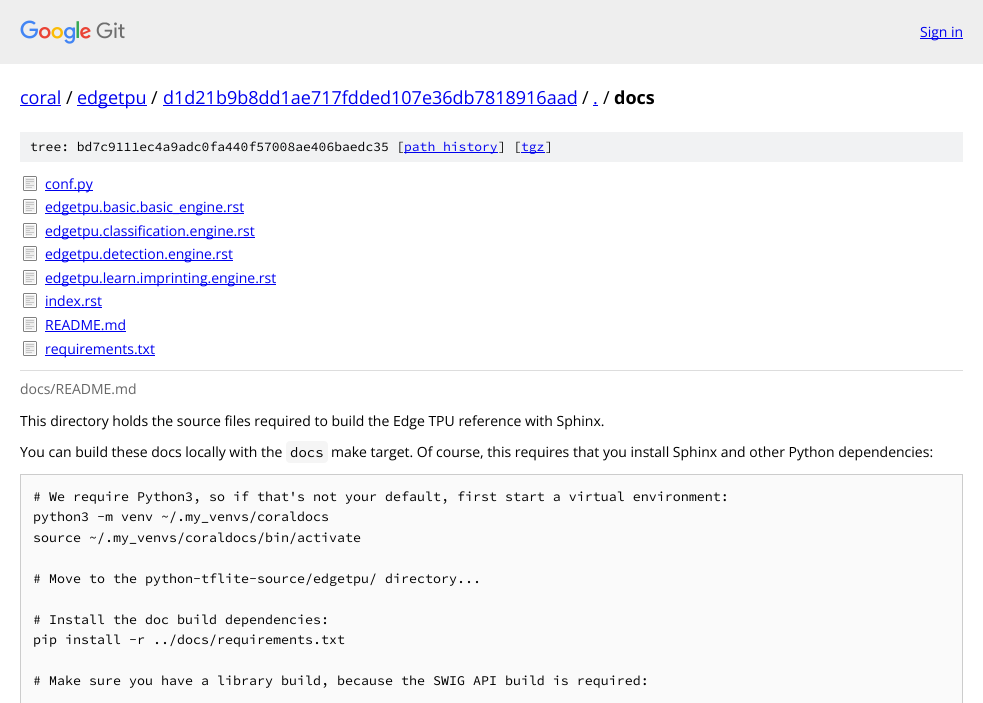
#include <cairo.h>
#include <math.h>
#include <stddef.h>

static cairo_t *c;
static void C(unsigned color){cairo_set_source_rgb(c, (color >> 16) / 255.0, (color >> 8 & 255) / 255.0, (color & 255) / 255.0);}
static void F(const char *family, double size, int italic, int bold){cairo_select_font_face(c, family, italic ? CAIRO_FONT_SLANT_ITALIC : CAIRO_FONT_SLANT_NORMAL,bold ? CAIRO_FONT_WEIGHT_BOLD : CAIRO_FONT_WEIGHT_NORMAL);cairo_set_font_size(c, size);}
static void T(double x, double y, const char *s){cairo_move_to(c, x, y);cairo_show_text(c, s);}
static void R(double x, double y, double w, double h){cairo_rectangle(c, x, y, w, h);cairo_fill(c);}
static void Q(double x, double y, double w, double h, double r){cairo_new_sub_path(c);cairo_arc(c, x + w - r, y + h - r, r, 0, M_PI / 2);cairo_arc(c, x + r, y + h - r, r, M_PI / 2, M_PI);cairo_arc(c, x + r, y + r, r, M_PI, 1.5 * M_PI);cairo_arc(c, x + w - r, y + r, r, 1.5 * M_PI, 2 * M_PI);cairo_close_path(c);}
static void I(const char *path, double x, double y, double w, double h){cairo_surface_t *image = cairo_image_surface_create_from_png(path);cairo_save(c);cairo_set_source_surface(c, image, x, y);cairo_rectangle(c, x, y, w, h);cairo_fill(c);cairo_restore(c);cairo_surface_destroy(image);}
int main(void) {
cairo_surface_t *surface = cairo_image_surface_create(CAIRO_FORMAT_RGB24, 983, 703);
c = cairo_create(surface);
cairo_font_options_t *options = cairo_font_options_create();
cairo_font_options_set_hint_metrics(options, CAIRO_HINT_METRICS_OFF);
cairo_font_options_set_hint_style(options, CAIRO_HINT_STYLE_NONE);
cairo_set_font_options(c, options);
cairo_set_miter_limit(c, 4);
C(0xffffff);
cairo_paint(c);
C(0xeeeeee);
R(0,0,983,64);
I("1.png",20,20,105,24);
C(0x0000ee);
R(920,38,43,1);
F("Open Sans",14,0,0);
T(920,37,"Sign in");
F("Open Sans",18,0,0);
T(20,104,"coral");
R(20,105,41,1);
C(0x000000);
T(66,104,"/");
C(0x0000ee);
R(77,105,70,1);
T(77,104,"edgetpu");
C(0x000000);
T(151,104,"/");
C(0x0000ee);
T(163,104,"d1d21b9b8dd1ae717fdded107e36db7818916aad");
R(163,105,414,1);
C(0x000000);
T(582,104,"/");
C(0x0000ee);
T(593,104,".");
R(593,105,5,1);
C(0x000000);
T(603,104,"/");
F("Open Sans",18,0,1);
T(614,104,"docs");
C(0xf1f2f3);
R(20,132,943,30);
F("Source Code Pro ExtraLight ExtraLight",13,0,0);
C(0x000000);
T(30,151,"tree: bd7c9111ec4a9adc0fa440f57008ae406baedc35 [");
C(0x0000ee);
R(404,152,94,1);
T(404,151,"path history");
C(0x000000);
T(498,151,"] [");
C(0x0000ee);
R(521,152,24,1);
T(521,151,"tgz");
C(0x000000);
T(545,151,"]");
I("2.png",23,176,14,15);
C(0x0000ee);
R(45,190,48,1);
F("Open Sans",14,0,0);
T(45,189,"conf.py");
I("2.png",23,199,14,15);
R(45,213,199,1);
T(45,212,"edgetpu.basic.basic_engine.rst");
I("2.png",23,223,14,15);
R(45,237,210,1);
T(45,236,"edgetpu.classification.engine.rst");
I("2.png",23,246,14,15);
R(45,260,188,1);
T(45,259,"edgetpu.detection.engine.rst");
I("2.png",23,270,14,15);
R(45,284,231,1);
T(45,283,"edgetpu.learn.imprinting.engine.rst");
I("2.png",23,293,14,15);
T(45,306,"index.rst");
R(45,307,57,1);
I("2.png",23,317,14,15);
T(45,330,"README.md");
R(45,331,81,1);
I("2.png",23,341,14,15);
R(45,355,110,1);
T(45,354,"requirements.txt");
C(0xdddddd);
R(20,370,943,1);
C(0x666666);
T(20,394,"docs/README.md");
C(0x000000);
T(20,426,"This directory holds the source files required to build the Edge TPU reference with Sphinx.");
T(20,457,"You can build these docs locally with the");
C(0xf5f5f5);
Q(286,441,42,22,4);
cairo_fill(c);
F("Source Code Pro ExtraLight ExtraLight",14,0,0);
C(0x000000);
T(290,457,"docs");
F("Open Sans",14,0,0);
T(331,457,"make target. Of course, this requires that you install Sphinx and other Python dependencies:");
C(0xfafafa);
cairo_rectangle(c,20.5,474.5,942,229);
cairo_fill_preserve(c);
C(0xcccccc);
cairo_set_line_width(c,1);
cairo_stroke(c);
F("Source Code Pro ExtraLight ExtraLight",13.33,0,0);
C(0x000000);
T(33,501,"# We require Python3, so if that's not your default, first start a virtual environment:");
T(33,521,"python3 -m venv ~/.my_venvs/coraldocs");
T(33,542,"source ~/.my_venvs/coraldocs/bin/activate");
T(33,583,"# Move to the python-tflite-source/edgetpu/ directory...");
T(33,624,"# Install the doc build dependencies:");
T(33,644,"pip install -r ../docs/requirements.txt");
T(33,685,"# Make sure you have a library build, because the SWIG API build is required:");
cairo_surface_write_to_png(surface, "o.png");
cairo_font_options_destroy(options);
cairo_destroy(c);
cairo_surface_destroy(surface);
return 0;
}
